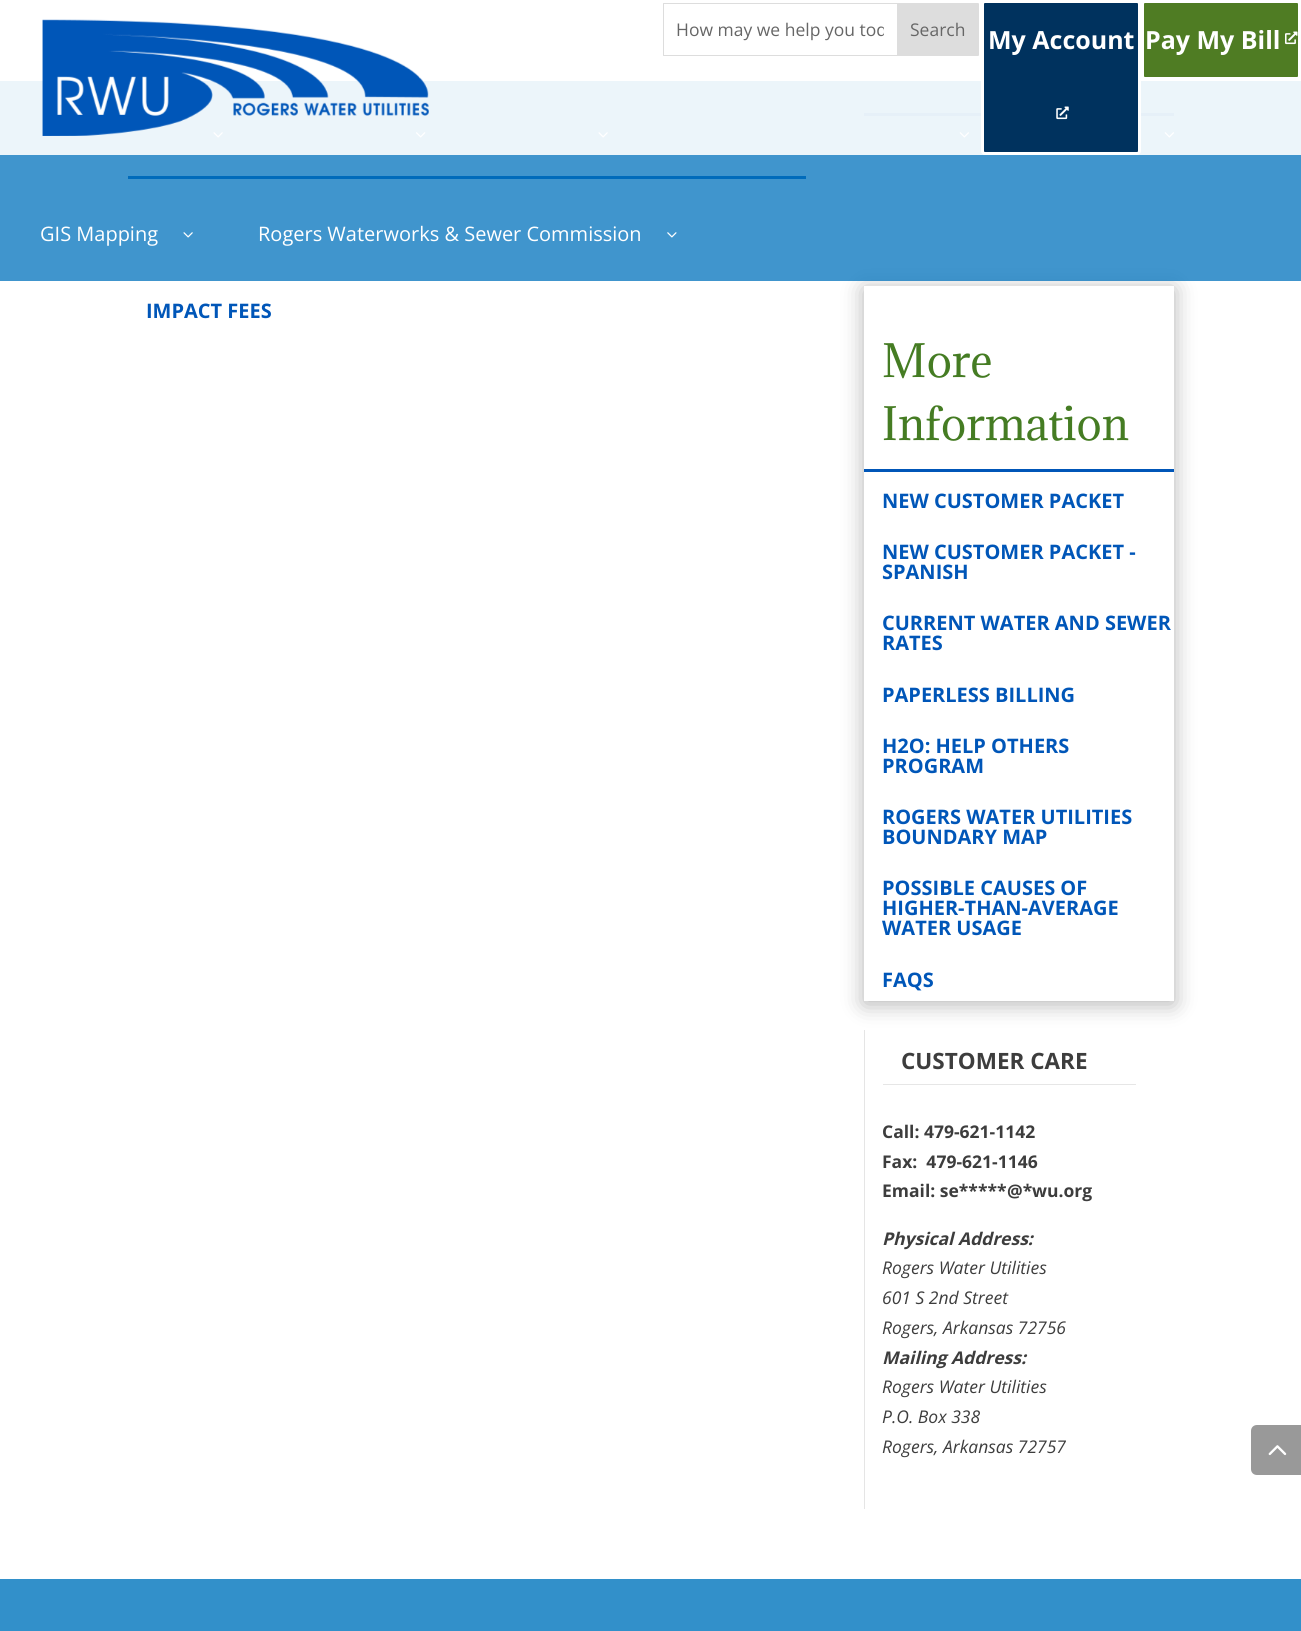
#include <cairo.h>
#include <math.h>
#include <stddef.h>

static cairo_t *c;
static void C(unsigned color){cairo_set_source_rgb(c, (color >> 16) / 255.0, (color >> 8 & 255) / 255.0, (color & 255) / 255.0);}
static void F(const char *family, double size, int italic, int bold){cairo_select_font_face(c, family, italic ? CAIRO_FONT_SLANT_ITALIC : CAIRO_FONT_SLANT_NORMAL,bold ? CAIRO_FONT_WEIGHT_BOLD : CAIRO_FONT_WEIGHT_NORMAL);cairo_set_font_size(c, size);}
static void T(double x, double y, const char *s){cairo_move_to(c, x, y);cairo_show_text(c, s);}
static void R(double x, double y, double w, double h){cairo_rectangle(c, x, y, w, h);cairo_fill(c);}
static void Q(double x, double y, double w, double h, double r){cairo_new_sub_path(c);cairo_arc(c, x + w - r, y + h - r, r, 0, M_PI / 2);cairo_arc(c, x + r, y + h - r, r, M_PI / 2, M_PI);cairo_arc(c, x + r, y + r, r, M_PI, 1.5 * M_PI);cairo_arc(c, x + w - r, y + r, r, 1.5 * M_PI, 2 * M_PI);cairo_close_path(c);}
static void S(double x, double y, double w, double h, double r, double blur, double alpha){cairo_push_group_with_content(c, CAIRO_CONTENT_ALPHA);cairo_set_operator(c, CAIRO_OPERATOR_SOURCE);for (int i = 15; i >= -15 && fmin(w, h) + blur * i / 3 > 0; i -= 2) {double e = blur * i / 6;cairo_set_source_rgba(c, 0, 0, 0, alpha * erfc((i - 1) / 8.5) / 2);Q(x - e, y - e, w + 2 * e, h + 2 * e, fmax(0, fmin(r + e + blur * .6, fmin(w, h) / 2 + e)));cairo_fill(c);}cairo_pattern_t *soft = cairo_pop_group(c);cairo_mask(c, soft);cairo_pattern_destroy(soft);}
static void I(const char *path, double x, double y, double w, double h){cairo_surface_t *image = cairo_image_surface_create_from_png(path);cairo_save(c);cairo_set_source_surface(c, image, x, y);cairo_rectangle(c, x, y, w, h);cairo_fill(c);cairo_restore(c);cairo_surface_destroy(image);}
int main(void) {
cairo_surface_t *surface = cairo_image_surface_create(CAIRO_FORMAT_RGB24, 1301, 1631);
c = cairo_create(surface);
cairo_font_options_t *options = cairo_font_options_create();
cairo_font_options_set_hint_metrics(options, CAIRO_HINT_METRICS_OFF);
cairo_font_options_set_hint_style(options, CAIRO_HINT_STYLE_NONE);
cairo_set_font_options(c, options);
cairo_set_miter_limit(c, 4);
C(0xffffff);
cairo_paint(c);
C(0x0056b8);
R(128,176,678,3);
R(864,113,310,3);
cairo_save(c);
cairo_set_fill_rule(c,CAIRO_FILL_RULE_EVEN_ODD);
cairo_new_path(c);
cairo_move_to(c,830,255);
cairo_line_to(c,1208,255);
cairo_line_to(c,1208,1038);
cairo_line_to(c,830,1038);
cairo_close_path(c);
cairo_move_to(c,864,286);
cairo_line_to(c,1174,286);
cairo_line_to(c,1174,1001);
cairo_line_to(c,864,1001);
cairo_close_path(c);
cairo_clip(c);
C(0x000000);
S(864,289,310,715,0,11,.3);
cairo_restore(c);
cairo_set_source_rgba(c,0,0.447,0.737,0.75);
R(0,81,1301,200);
I("4.png",213,132,10,6);
I("5.png",416,132,10,6);
I("4.png",598,132,10,6);
I("6.png",959,132,10,6);
I("7.png",1164,132,10,6);
cairo_set_source_rgba(c,1,1,1,0.9);
R(0,81,1301,74);
I("1.png",42,19,387,117);
C(0xdddddd);
cairo_set_fill_rule(c,CAIRO_FILL_RULE_EVEN_ODD);
cairo_new_path(c);
cairo_move_to(c,664,3);
cairo_curve_to(c,663,3,663,3,663,4);
cairo_line_to(c,663,55);
cairo_curve_to(c,663,56,663,56,664,56);
cairo_line_to(c,898,56);
cairo_line_to(c,898,3);
cairo_close_path(c);
cairo_move_to(c,664,4);
cairo_line_to(c,664,55);
cairo_line_to(c,897,55);
cairo_line_to(c,897,4);
cairo_close_path(c);
cairo_fill(c);
cairo_save(c);
cairo_set_fill_rule(c,CAIRO_FILL_RULE_WINDING);
cairo_rectangle(c,676,18,208,23);
cairo_clip(c);
F("Open Sans",17.5,0,0);
C(0x666666);
T(676,36,"How may we help you tod");
cairo_restore(c);
cairo_new_path(c);
cairo_move_to(c,898,3);
cairo_line_to(c,978,3);
cairo_curve_to(c,978.5,3,979,3.5,979,4);
cairo_line_to(c,979,55);
cairo_curve_to(c,979,55.5,978.5,56,978,56);
cairo_line_to(c,898,56);
cairo_close_path(c);
cairo_fill(c);
F("Open Sans",17.5,0,0);
C(0x666666);
T(910,36,"Search");
C(0x00325e);
Q(982.5,1.5,157,152,2.5);
cairo_fill_preserve(c);
C(0xffffff);
cairo_set_line_width(c,3);
cairo_stroke(c);
F("Open Sans",25,0,1);
T(988,49,"My Account");
I("2.png",1056,106,13,14);
C(0x4f7c23);
Q(1142.5,1.5,157,77,2.5);
cairo_fill_preserve(c);
C(0xffffff);
cairo_stroke(c);
T(1145,49,"Pay My Bill");
I("3.png",1285,31,13,14);
F("Open Sans",20,0,0);
T(40,241,"GIS Mapping");
I("4.png",183,232,10,6);
T(258,241,"Rogers Waterworks & Sewer Commission");
I("8.png",667,232,10,6);
F("Open Sans",20,0,1);
C(0x0056b8);
T(146,318,"IMPACT FEES");
R(864,469,310,3);
F("Adamina",42.5,0,0);
C(0x457c23);
T(882,377,"More");
T(882,440,"Information");
F("Open Sans",20,0,1);
C(0x0056b8);
T(882,508,"NEW CUSTOMER PACKET");
T(882,559,"NEW CUSTOMER PACKET -");
T(882,579,"SPANISH");
T(882,630,"CURRENT WATER AND SEWER");
T(882,650,"RATES");
T(882,702,"PAPERLESS BILLING");
T(882,753,"H2O: HELP OTHERS");
T(882,773,"PROGRAM");
T(882,824,"ROGERS WATER UTILITIES");
T(882,844,"BOUNDARY MAP");
T(882,895,"POSSIBLE CAUSES OF");
T(882,915,"HIGHER-THAN-AVERAGE");
T(882,935,"WATER USAGE");
T(882,987,"FAQS");
C(0xe5e5e5);
R(864,1030,1,479);
C(0xe6e6e6);
R(883,1084,253,1);
F("Open Sans",22.5,0,1);
C(0x3d3d3d);
T(901,1069,"CUSTOMER CARE");
F("Open Sans",17.5,0,1);
T(882,1138,"Call: 479-621-1142");
T(882,1168,"Fax:  479-621-1146");
T(882,1197,"Email: se*****");
T(1007,1197,"@*");
T(1032,1197,"wu.org");
F("Open Sans",17.5,1,1);
T(882,1245,"Physical Address:");
F("Open Sans",17.5,1,0);
T(882,1274,"Rogers Water Utilities");
T(882,1304,"601 S 2nd Street");
T(882,1334,"Rogers, Arkansas 72756");
F("Open Sans",17.5,1,1);
T(882,1364,"Mailing Address:");
F("Open Sans",17.5,1,0);
T(882,1393,"Rogers Water Utilities");
T(882,1423,"P.O. Box 338");
T(882,1453,"Rogers, Arkansas 72757");
C(0x3290ca);
R(0,1579,1301,52);
C(0x999999);
cairo_new_path(c);
cairo_move_to(c,1257,1425);
cairo_line_to(c,1301,1425);
cairo_line_to(c,1301,1475);
cairo_line_to(c,1257,1475);
cairo_curve_to(c,1253.5,1475,1251,1472.5,1251,1469);
cairo_line_to(c,1251,1431);
cairo_curve_to(c,1251,1427.5,1253.5,1425,1257,1425);
cairo_close_path(c);
cairo_fill(c);
I("9.png",1268,1445,19,11);
cairo_surface_write_to_png(surface, "o.png");
cairo_font_options_destroy(options);
cairo_destroy(c);
cairo_surface_destroy(surface);
return 0;
}
